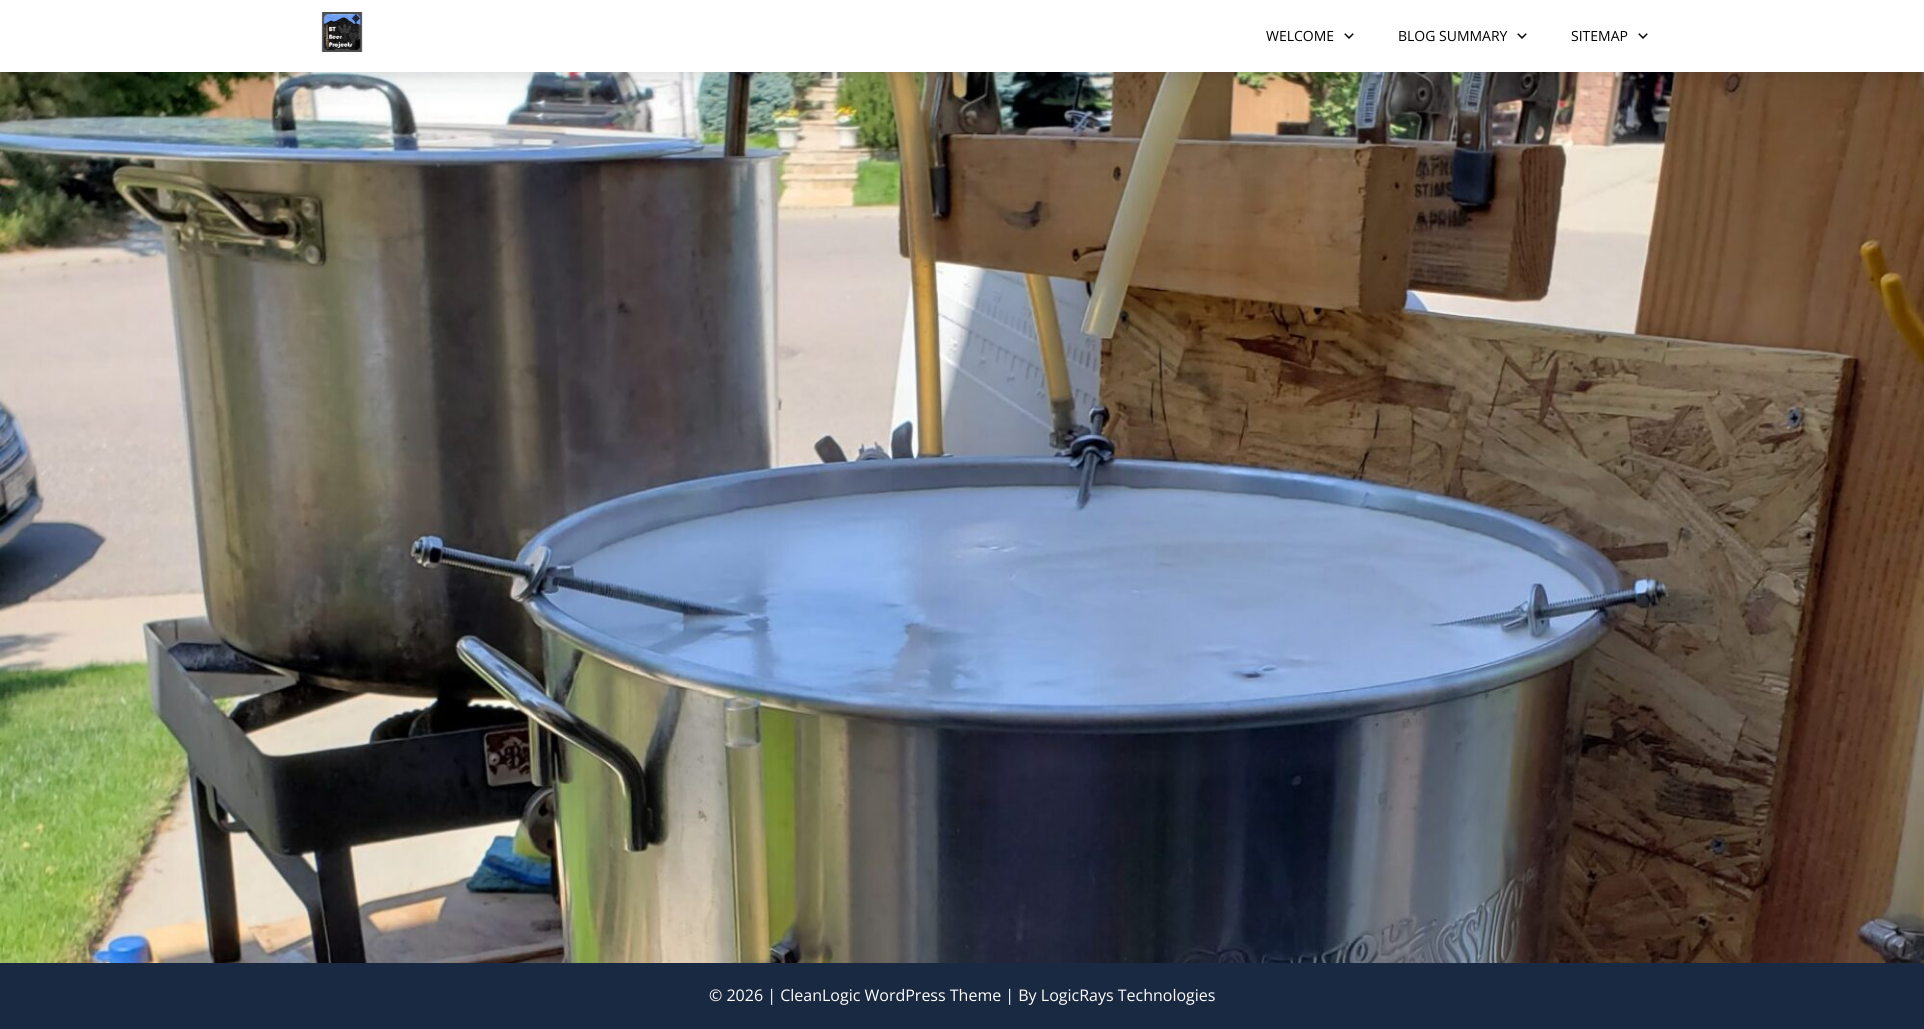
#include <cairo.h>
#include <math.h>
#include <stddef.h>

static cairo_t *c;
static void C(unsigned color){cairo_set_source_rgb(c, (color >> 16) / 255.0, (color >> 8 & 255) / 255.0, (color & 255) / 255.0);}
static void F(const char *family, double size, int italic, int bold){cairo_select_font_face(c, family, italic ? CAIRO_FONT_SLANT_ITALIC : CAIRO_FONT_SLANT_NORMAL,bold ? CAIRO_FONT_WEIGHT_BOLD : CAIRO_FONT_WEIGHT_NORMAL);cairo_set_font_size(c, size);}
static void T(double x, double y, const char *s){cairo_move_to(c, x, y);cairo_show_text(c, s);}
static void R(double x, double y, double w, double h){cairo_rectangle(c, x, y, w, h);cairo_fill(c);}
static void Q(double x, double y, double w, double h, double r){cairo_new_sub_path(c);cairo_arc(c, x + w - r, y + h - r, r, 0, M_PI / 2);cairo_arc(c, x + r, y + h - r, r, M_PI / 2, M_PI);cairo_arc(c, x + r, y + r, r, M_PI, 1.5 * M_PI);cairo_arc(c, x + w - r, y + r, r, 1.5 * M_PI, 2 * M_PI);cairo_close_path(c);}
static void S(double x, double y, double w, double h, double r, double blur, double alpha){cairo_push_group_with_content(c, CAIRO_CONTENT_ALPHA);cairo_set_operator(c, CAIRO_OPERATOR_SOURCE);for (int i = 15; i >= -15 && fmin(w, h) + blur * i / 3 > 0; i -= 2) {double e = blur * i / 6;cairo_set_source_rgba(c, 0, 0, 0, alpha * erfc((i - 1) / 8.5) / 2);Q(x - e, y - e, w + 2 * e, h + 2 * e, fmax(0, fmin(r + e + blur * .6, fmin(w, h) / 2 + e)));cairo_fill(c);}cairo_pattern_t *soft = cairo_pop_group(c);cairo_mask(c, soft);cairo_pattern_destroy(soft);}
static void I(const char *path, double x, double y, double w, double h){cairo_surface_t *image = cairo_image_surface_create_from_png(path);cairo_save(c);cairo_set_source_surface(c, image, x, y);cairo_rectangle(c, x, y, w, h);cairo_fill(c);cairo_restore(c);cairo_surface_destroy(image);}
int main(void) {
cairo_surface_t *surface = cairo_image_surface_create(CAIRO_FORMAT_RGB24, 1924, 1029);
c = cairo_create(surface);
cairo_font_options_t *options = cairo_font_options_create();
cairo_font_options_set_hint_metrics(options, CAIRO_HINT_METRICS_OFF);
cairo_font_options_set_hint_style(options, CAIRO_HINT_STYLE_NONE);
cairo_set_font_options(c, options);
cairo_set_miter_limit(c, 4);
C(0xffffff);
cairo_paint(c);
I("3.png",0,72,1924,891);
C(0x000000);
S(0,20,1924,72,0,10,.04);
S(0,5,1924,72,0,5.5,.08);
C(0xffffff);
R(0,0,1924,72);
I("1.png",321,12,42,40);
F("Open Sans",14,0,0);
C(0x000000);
T(1266,41,"WELCOME");
I("2.png",1344,33,10,6);
T(1398,41,"BLOG SUMMARY");
I("2.png",1517,33,10,6);
T(1571,41,"SITEMAP");
I("2.png",1638,33,10,6);
C(0x1a2942);
R(0,963,1924,66);
F("Open Sans",16,0,0);
C(0xffffff);
T(709,1001,"© 2026 | CleanLogic WordPress Theme | By LogicRays Technologies");
cairo_surface_write_to_png(surface, "o.png");
cairo_font_options_destroy(options);
cairo_destroy(c);
cairo_surface_destroy(surface);
return 0;
}
